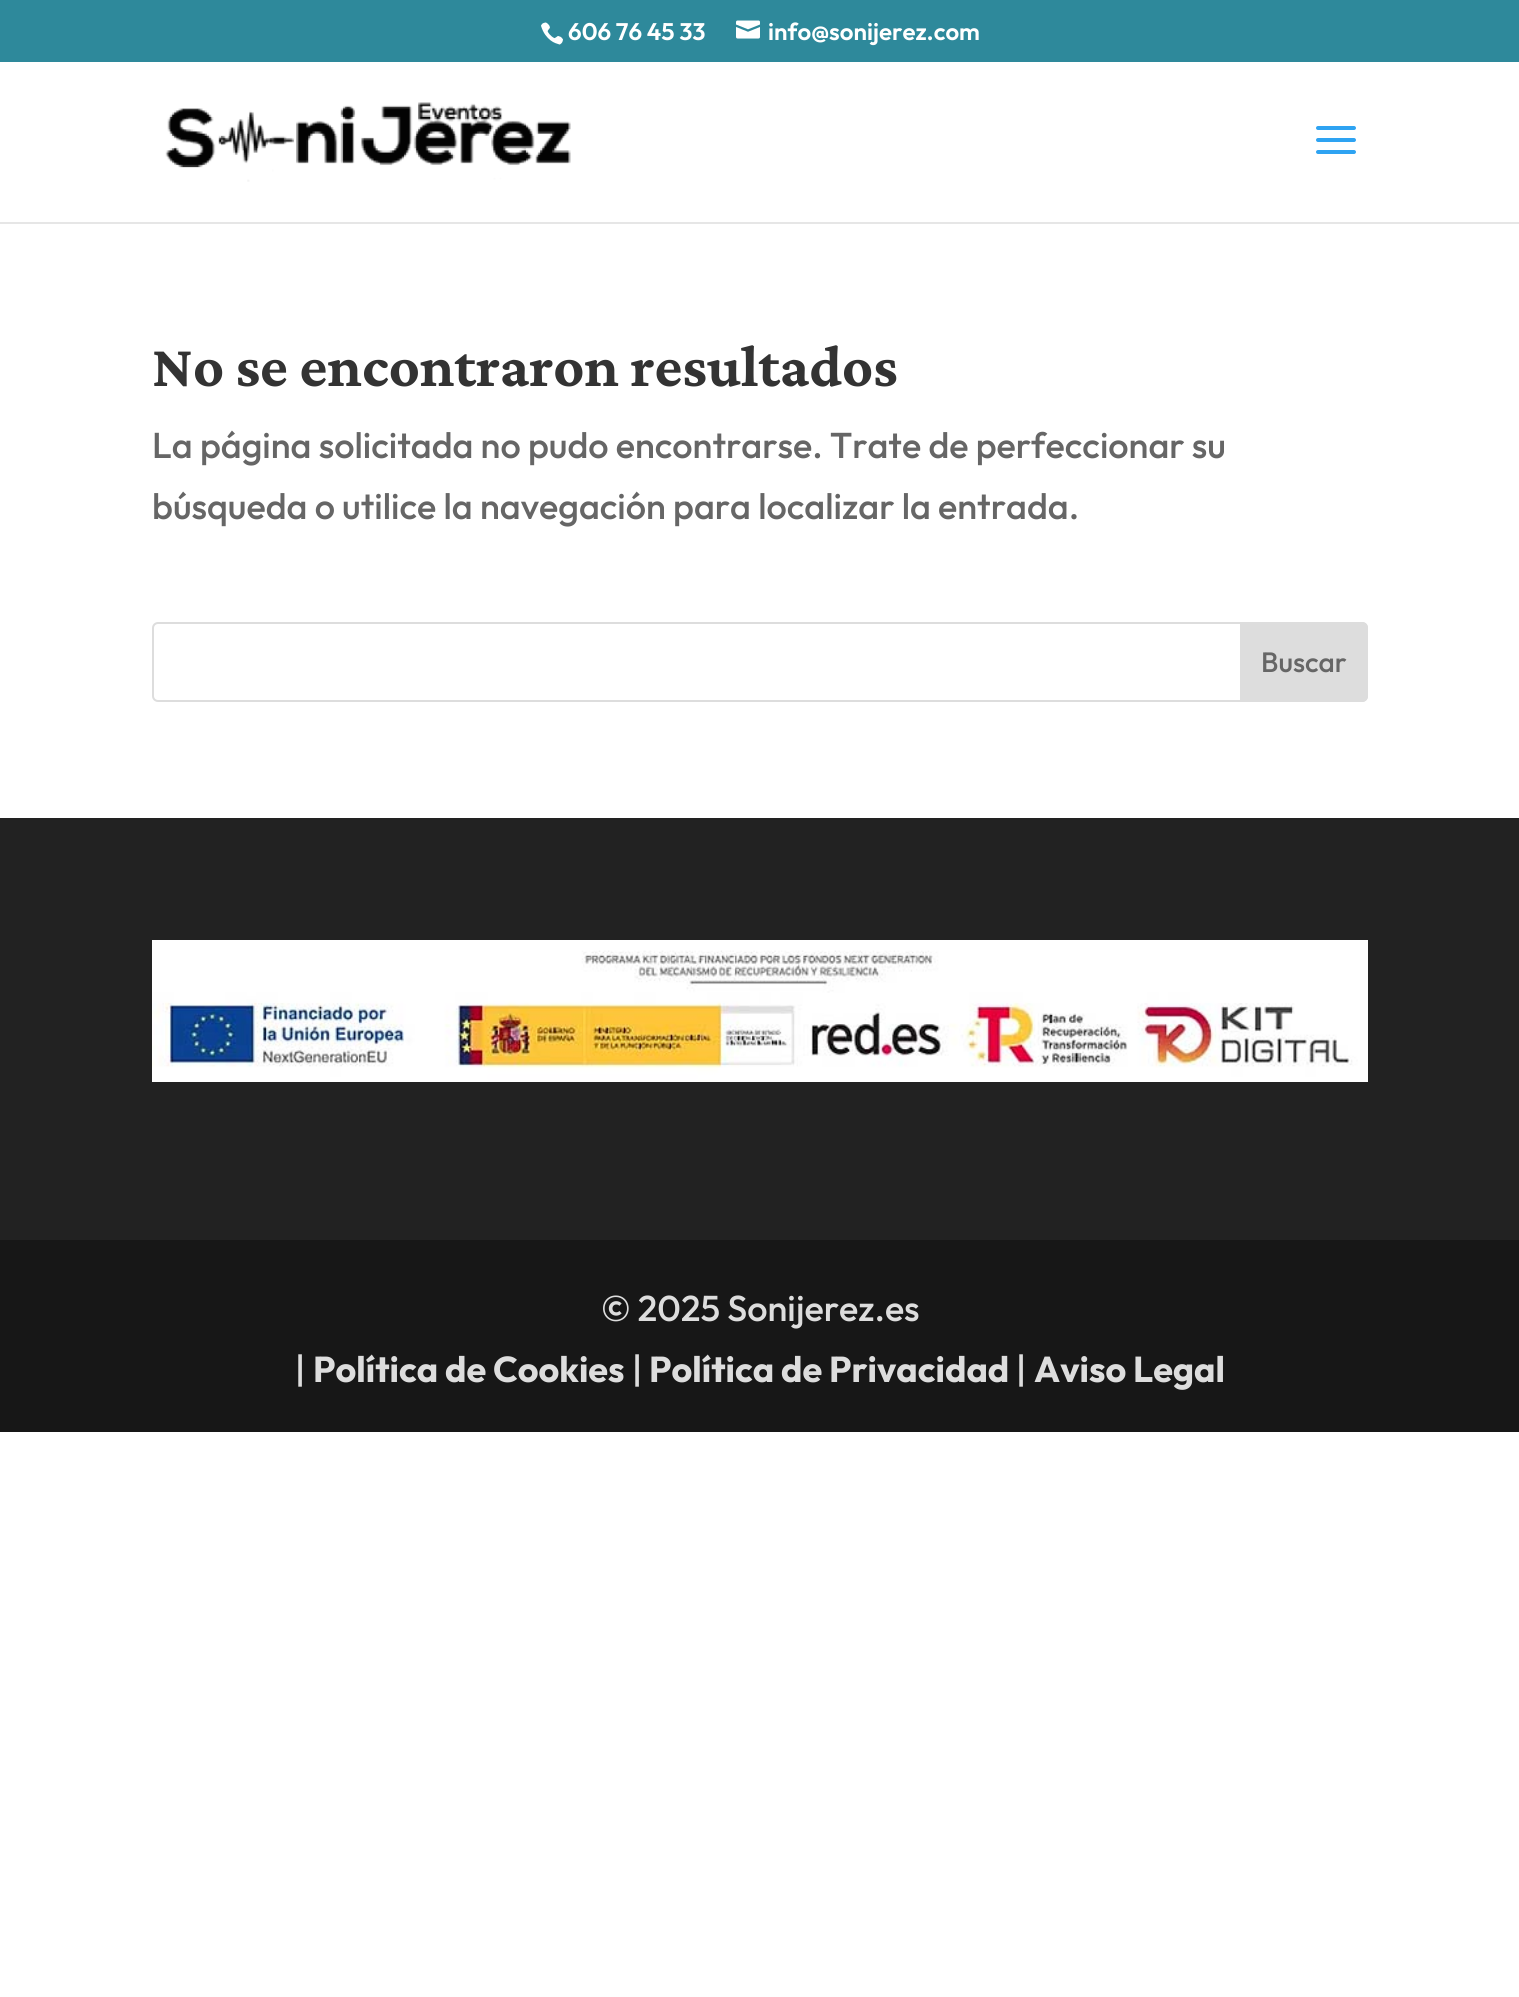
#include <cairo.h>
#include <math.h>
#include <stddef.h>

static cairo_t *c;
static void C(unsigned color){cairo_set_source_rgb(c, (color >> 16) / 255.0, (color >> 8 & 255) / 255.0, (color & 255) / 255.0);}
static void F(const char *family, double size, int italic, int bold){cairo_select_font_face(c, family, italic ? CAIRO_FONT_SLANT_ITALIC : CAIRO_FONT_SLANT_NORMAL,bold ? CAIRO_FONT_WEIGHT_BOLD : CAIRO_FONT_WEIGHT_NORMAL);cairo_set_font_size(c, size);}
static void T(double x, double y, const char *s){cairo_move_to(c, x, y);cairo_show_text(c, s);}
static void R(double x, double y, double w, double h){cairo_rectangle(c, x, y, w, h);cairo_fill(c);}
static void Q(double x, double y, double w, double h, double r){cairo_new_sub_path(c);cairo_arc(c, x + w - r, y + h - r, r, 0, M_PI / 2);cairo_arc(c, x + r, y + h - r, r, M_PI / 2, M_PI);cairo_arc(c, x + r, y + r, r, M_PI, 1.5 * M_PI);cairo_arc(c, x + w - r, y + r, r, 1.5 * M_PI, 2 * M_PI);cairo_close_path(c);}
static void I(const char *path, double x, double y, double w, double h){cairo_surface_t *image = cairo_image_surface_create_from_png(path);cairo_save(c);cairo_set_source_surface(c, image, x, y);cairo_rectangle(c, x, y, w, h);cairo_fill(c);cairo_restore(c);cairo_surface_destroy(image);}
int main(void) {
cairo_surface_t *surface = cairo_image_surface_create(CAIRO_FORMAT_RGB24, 1519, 1997);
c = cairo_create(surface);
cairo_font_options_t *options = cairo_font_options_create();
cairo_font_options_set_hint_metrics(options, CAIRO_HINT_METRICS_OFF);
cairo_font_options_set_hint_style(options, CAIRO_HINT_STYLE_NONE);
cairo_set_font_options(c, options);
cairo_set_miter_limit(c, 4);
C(0xffffff);
cairo_paint(c);
C(0x2e899b);
R(0,0,1519,62);
I("1.png",541,22,22,23);
F("Outfit SemiBold",24,0,0);
C(0xffffff);
T(568,40,"606 76 45 33");
I("2.png",736,20,24,19);
T(768,40,"info@sonijerez.com");
C(0xe6e6e6);
R(0,222,1519,2);
I("3.png",165,102,406,80);
I("4.png",1316,126,40,28);
F("Crimson Pro",60,0,1);
C(0x333333);
T(152,386,"No se encontraron resultados");
F("Outfit Medium",36,0,0);
C(0x666666);
T(152,458,"La página solicitada no pudo encontrarse. Trate de perfeccionar su");
T(152,519,"búsqueda o utilice la navegación para localizar la entrada.");
Q(153,623,1214,78,5);
C(0xdddddd);
cairo_stroke(c);
cairo_new_path(c);
cairo_move_to(c,1241,623);
cairo_line_to(c,1362,623);
cairo_curve_to(c,1365,623,1367,625,1367,628);
cairo_line_to(c,1367,696);
cairo_curve_to(c,1367,699,1365,701,1362,701);
cairo_line_to(c,1241,701);
cairo_close_path(c);
cairo_fill_preserve(c);
cairo_stroke(c);
F("Outfit Medium",28,0,0);
C(0x666666);
T(1261,672,"Buscar");
C(0x222222);
R(0,818,1519,422);
I("5.png",152,940,1216,142);
C(0x171717);
R(0,1240,1519,192);
F("Outfit Medium",36,0,0);
C(0xdddddd);
T(601,1321,"© 2025 Sonijerez.es");
T(295,1382,"|");
F("Outfit",36,0,1);
T(313,1382,"Política de Cookies");
F("Outfit Medium",36,0,0);
T(632,1382,"|");
F("Outfit",36,0,1);
T(649,1382,"Política de Privacidad");
F("Outfit Medium",36,0,0);
T(1016,1382,"|");
F("Outfit",36,0,1);
T(1034,1382,"Aviso Legal");
cairo_surface_write_to_png(surface, "o.png");
cairo_font_options_destroy(options);
cairo_destroy(c);
cairo_surface_destroy(surface);
return 0;
}
